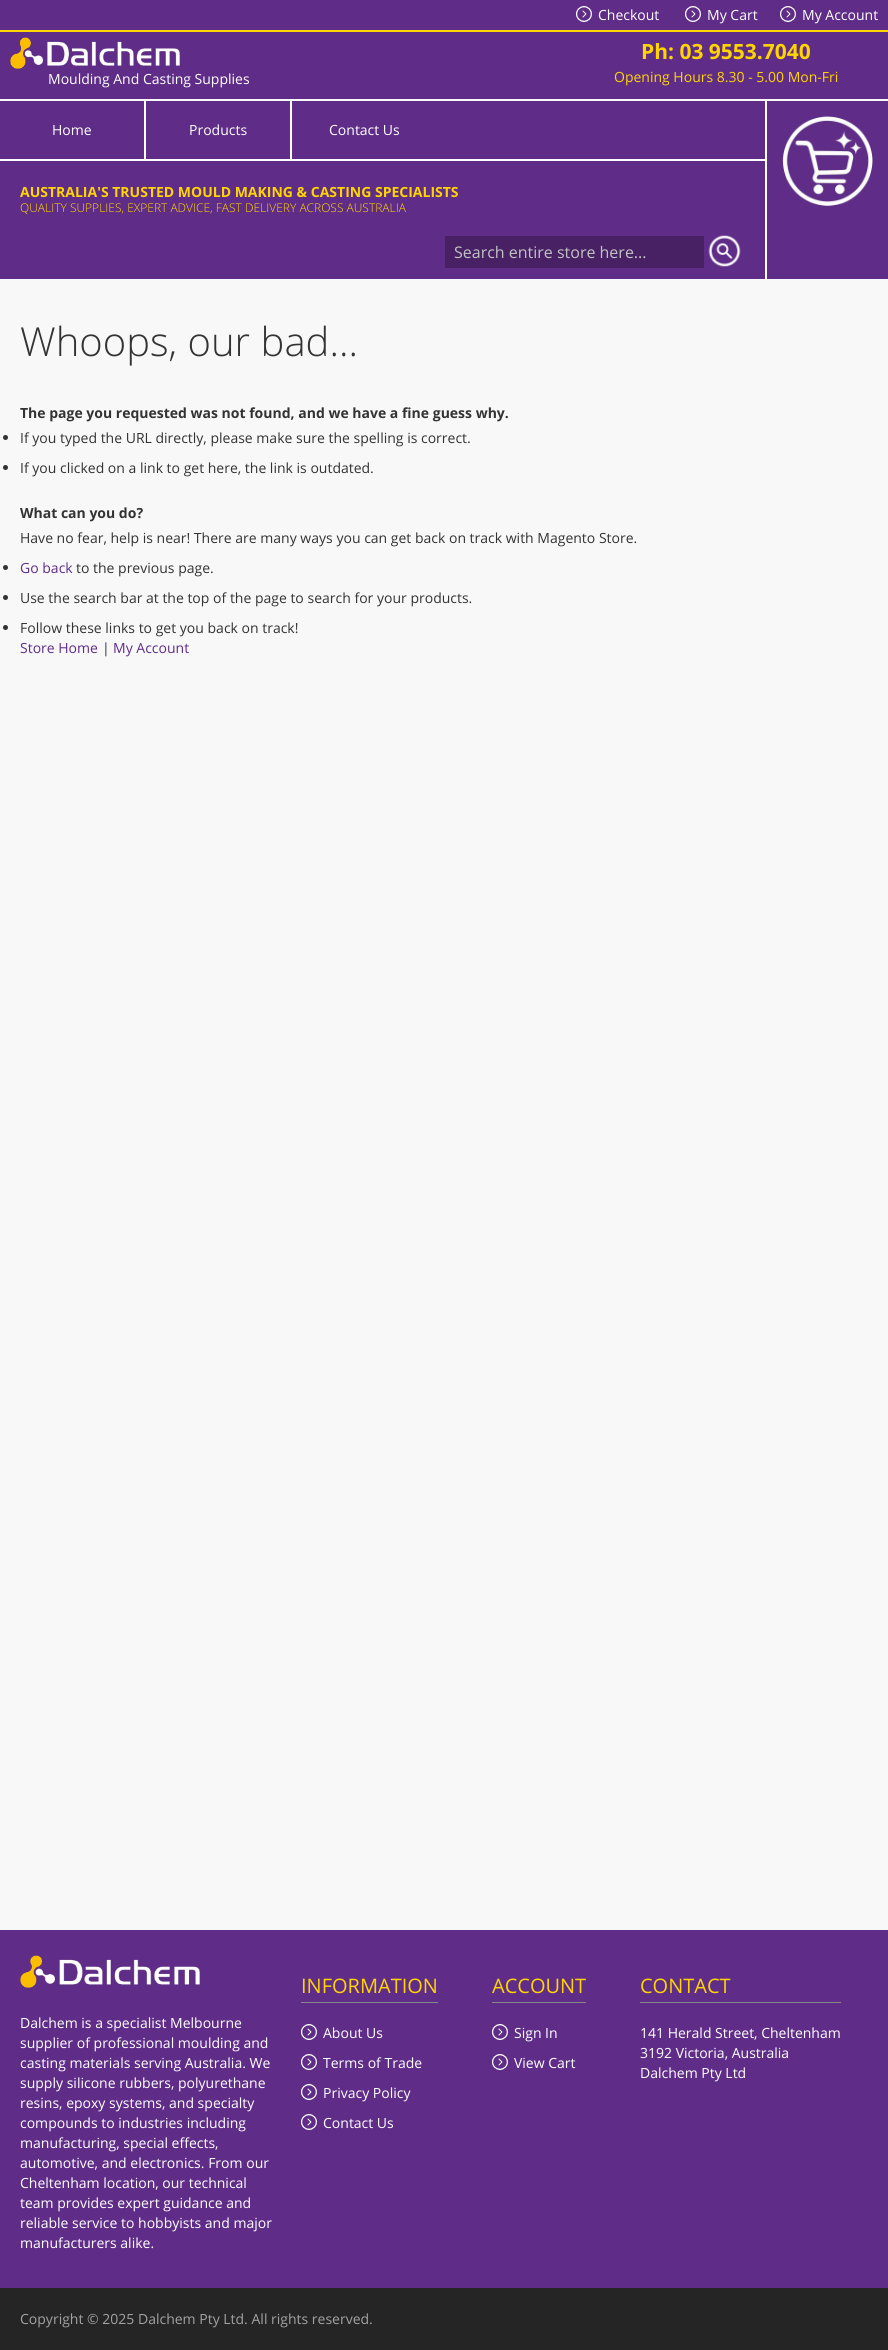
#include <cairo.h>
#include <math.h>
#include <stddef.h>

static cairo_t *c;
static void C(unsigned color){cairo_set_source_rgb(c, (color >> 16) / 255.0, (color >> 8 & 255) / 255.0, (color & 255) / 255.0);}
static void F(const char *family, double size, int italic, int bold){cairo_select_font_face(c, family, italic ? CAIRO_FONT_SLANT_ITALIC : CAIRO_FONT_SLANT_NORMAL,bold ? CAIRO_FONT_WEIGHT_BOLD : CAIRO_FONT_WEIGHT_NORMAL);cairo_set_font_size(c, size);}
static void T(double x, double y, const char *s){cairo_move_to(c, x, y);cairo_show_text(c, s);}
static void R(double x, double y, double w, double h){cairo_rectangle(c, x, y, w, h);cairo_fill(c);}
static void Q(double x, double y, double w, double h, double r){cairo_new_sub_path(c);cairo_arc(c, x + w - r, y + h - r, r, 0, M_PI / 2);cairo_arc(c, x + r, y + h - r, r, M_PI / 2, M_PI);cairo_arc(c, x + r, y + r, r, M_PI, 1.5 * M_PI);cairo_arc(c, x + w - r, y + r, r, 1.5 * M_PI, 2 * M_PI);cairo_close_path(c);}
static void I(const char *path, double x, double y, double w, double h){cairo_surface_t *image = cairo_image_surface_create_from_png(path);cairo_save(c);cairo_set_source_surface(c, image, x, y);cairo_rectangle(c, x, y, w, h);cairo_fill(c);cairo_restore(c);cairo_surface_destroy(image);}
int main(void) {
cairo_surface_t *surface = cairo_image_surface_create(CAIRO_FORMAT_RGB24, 888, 2350);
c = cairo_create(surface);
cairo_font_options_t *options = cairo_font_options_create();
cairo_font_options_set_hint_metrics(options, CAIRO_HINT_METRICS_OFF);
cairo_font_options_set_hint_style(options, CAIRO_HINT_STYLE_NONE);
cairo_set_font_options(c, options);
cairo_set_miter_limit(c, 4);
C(0xf8f8f8);
cairo_paint(c);
C(0x5f2d88);
R(0,0,888,99);
C(0xfed401);
R(0,30,888,2);
I("1.png",576,6,16,16);
F("Open Sans",14,0,0);
C(0xffffff);
T(598,20,"Checkout");
I("1.png",685,6,16,16);
T(707,20,"My Cart");
I("1.png",780,6,16,16);
T(802,20,"My Account");
I("2.png",10,37,170,32);
T(48,84,"Moulding And Casting Supplies");
F("Open Sans",21,0,1);
C(0xfed401);
T(641,59,"Ph: 03 9553.7040");
F("Open Sans",14,0,0);
T(614,82,"Opening Hours 8.30 - 5.00 Mon-Fri");
C(0x5f2d88);
R(0,101,888,178);
C(0xffffff);
R(0,159,765,2);
R(144,101,2,58);
T(52,135,"Home");
R(290,101,2,58);
T(189,135,"Products");
T(329,135,"Contact Us");
F("Open Sans",14,0,1);
C(0xfed401);
T(20,197,"AUSTRALIA'S TRUSTED MOULD MAKING & CASTING SPECIALISTS");
F("Open Sans Light",12,0,0);
T(20,212,"QUALITY SUPPLIES, EXPERT ADVICE, FAST DELIVERY ACROSS AUSTRALIA");
C(0x472164);
Q(445,236,259,32,1);
cairo_fill(c);
F("Open Sans",16,0,0);
C(0xc2c2c2);
T(454,258,"Search entire store here...");
I("3.png",708,235,33,32);
C(0xffffff);
R(765,101,2,178);
I("4.png",782,116,91,90);
F("Open Sans Light",40,0,0);
C(0x333333);
T(20,356,"Whoops, our bad...");
F("Open Sans",14,0,1);
T(20,418,"The page you requested was not found, and we have a fine guess why.");
cairo_new_path(c);
cairo_arc(c,5.5,437.5,2.5,0,2 * M_PI);
cairo_fill(c);
F("Open Sans",14,0,0);
T(20,443,"If you typed the URL directly, please make sure the spelling is correct.");
cairo_new_path(c);
cairo_arc(c,5.5,467.5,2.5,0,2 * M_PI);
cairo_fill(c);
T(20,473,"If you clicked on a link to get here, the link is outdated.");
F("Open Sans",14,0,1);
T(20,518,"What can you do?");
F("Open Sans",14,0,0);
T(20,543,"Have no fear, help is near! There are many ways you can get back on track with Magento Store.");
cairo_new_path(c);
cairo_arc(c,5.5,567.5,2.5,0,2 * M_PI);
cairo_fill(c);
C(0x5f2d88);
T(20,573,"Go back");
C(0x333333);
T(76,573,"to the previous page.");
cairo_new_path(c);
cairo_arc(c,5.5,597.5,2.5,0,2 * M_PI);
cairo_fill(c);
T(20,603,"Use the search bar at the top of the page to search for your products.");
cairo_new_path(c);
cairo_arc(c,5.5,627.5,2.5,0,2 * M_PI);
cairo_fill(c);
T(20,633,"Follow these links to get you back on track!");
C(0x5f2d88);
T(20,653,"Store Home");
C(0x333333);
T(102,653,"|");
C(0x5f2d88);
T(113,653,"My Account");
R(0,1930,888,358);
I("5.png",20,1955,180,33);
C(0xffffff);
T(20,2028,"Dalchem is a specialist Melbourne");
T(20,2048,"supplier of professional moulding and");
T(20,2068,"casting materials serving Australia. We");
T(20,2088,"supply silicone rubbers, polyurethane");
T(20,2108,"resins, epoxy systems, and specialty");
T(20,2128,"compounds to industries including");
T(20,2148,"manufacturing, special effects,");
T(20,2168,"automotive, and electronics. From our");
T(20,2188,"Cheltenham location, our technical");
T(20,2208,"team provides expert guidance and");
T(20,2228,"reliable service to hobbyists and major");
T(20,2248,"manufacturers alike.");
C(0x878787);
R(301,2002,137,1);
F("Open Sans",20,0,0);
C(0xfed401);
T(301,1993,"INFORMATION");
I("1.png",301,2024,16,16);
F("Open Sans",14,0,0);
C(0xffffff);
T(323,2038,"About Us");
I("1.png",301,2054,16,16);
T(323,2068,"Terms of Trade");
I("1.png",301,2084,16,16);
T(323,2098,"Privacy Policy");
I("1.png",301,2114,16,16);
T(323,2128,"Contact Us");
C(0x878787);
R(492,2002,94,1);
F("Open Sans",20,0,0);
C(0xfed401);
T(492,1993,"ACCOUNT");
I("1.png",492,2024,16,16);
F("Open Sans",14,0,0);
C(0xffffff);
T(514,2038,"Sign In");
I("1.png",492,2054,16,16);
T(514,2068,"View Cart");
C(0x878787);
R(640,2002,201,1);
F("Open Sans",20,0,0);
C(0xfed401);
T(640,1993,"CONTACT");
F("Open Sans",14,0,0);
C(0xffffff);
T(640,2038,"141 Herald Street, Cheltenham");
T(640,2058,"3192 Victoria, Australia");
T(640,2078,"Dalchem Pty Ltd");
C(0x252525);
R(0,2288,888,62);
C(0xa2a2a2);
T(20,2324,"Copyright © 2025 Dalchem Pty Ltd. All rights reserved.");
cairo_surface_write_to_png(surface, "o.png");
cairo_font_options_destroy(options);
cairo_destroy(c);
cairo_surface_destroy(surface);
return 0;
}
